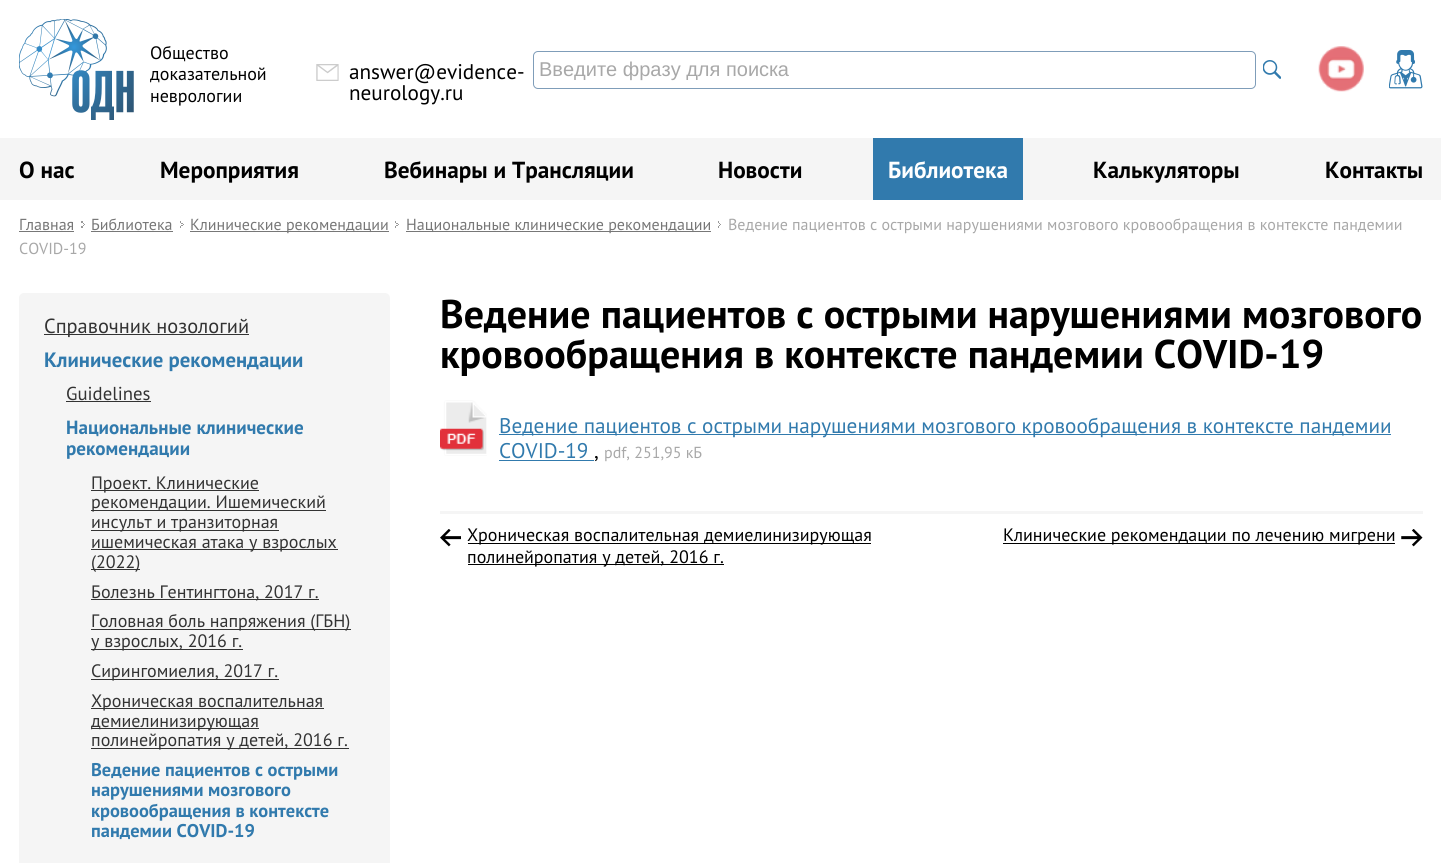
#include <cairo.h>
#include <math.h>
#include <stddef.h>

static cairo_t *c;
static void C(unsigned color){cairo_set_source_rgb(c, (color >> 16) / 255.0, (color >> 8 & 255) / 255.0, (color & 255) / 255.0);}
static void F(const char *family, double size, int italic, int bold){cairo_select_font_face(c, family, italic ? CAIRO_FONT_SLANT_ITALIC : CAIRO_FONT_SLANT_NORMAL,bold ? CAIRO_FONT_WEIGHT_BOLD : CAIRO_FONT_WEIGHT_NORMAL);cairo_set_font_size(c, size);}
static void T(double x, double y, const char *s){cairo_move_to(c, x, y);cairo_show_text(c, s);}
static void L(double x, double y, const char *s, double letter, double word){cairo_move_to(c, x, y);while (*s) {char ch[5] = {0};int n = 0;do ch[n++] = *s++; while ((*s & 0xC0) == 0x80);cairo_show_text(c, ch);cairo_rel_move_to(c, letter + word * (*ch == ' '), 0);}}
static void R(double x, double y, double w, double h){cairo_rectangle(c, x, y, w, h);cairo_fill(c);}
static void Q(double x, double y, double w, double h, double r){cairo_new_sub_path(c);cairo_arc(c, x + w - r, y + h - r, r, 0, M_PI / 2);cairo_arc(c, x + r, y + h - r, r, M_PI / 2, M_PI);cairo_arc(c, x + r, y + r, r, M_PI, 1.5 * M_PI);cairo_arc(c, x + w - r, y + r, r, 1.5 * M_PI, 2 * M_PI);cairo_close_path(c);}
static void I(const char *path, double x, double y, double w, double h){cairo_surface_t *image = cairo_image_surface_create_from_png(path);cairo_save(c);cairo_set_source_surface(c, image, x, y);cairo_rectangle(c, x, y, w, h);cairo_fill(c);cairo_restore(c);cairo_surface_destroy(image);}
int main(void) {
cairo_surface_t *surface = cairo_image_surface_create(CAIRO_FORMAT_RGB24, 1441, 863);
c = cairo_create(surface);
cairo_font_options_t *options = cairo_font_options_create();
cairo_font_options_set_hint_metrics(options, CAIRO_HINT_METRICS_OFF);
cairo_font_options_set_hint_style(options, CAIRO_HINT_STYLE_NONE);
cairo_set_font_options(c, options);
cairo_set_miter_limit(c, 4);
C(0xffffff);
cairo_paint(c);
I("1.png",19,19,115,101);
F("PT Sans",18,0,0);
C(0x000000);
T(150,59,"Общество");
T(150,80,"доказательной");
T(150,102,"неврологии");
I("2.png",316,64,23,17);
F("PT Sans",21.2,0,0);
T(349,79,"answer@evidence-");
T(349,100,"neurology.ru");
Q(533.5,51.5,722,37,4.5);
C(0x7f9db9);
cairo_set_line_width(c,1);
cairo_stroke(c);
F("Liberation Sans",20,0,0);
C(0xa8a8a8);
T(539,76,"Введите фразу для поиска");
I("3.png",1263,60,18,19);
I("4.png",1318,46,46,46);
I("5.png",1389,50,34,39);
C(0xf5f5f5);
R(0,138,1441,62);
F("PT Sans",23.25,0,1);
C(0x000000);
T(19,178,"О нас");
T(160,178,"Мероприятия");
T(384,178,"Вебинары и Трансляции");
T(718,178,"Новости");
C(0x317aad);
R(873,138,150,62);
C(0xffffff);
T(888,178,"Библиотека");
C(0x000000);
T(1093,178,"Калькуляторы");
T(1325,178,"Контакты");
F("PT Sans",16,0,0);
C(0x777777);
T(19,230,"Главная");
R(19,231,55,1);
I("6.png",81,221,4,7);
T(91,230,"Библиотека");
R(91,231,82,1);
I("7.png",180,221,4,7);
R(190,231,199,1);
T(190,230,"Клинические рекомендации");
I("7.png",395,221,4,7);
R(406,231,305,1);
T(406,230,"Национальные клинические рекомендации");
I("8.png",718,221,3,7);
C(0xa8a8a8);
T(728,230,"Ведение пациентов с острыми нарушениями мозгового кровообращения в контексте пандемии");
T(19,254,"COVID-19");
C(0xf5f5f5);
Q(19,293,371,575,5);
cairo_fill(c);
C(0x333333);
R(44,334,205,1);
F("PT Sans",20.4,0,0);
T(44,333,"Справочник нозологий");
F("PT Sans",20.75,0,1);
C(0x317aad);
T(44,367,"Клинические рекомендации");
F("PT Sans",18.75,0,0);
C(0x333333);
T(66,400,"Guidelines");
R(66,401,85,1);
F("PT Sans",19.1,0,1);
C(0x317aad);
T(66,434,"Национальные клинические");
T(66,455,"рекомендации");
C(0x333333);
R(91,490,168,1);
F("PT Sans",18,0,0);
T(91,489,"Проект. Клинические");
R(91,510,235,1);
T(91,508,"рекомендации. Ишемический");
R(91,530,188,1);
T(91,528,"инсульт и транзиторная");
R(91,549,247,1);
T(91,548,"ишемическая атака у взрослых");
R(91,569,49,1);
T(91,568,"(2022)");
R(91,599,228,1);
T(91,598,"Болезнь Гентингтона, 2017 г.");
R(91,629,260,1);
T(91,627,"Головная боль напряжения (ГБН)");
R(91,649,152,1);
T(91,647,"у взрослых, 2016 г.");
R(91,679,188,1);
T(91,677,"Сирингомиелия, 2017 г.");
R(91,708,233,1);
T(91,707,"Хроническая воспалительная");
R(91,728,168,1);
T(91,727,"демиелинизирующая");
R(91,748,258,1);
T(91,746,"полинейропатия у детей, 2016 г.");
F("PT Sans",18.4,0,1);
C(0x317aad);
T(91,776,"Ведение пациентов с острыми");
T(91,796,"нарушениями мозгового");
T(91,817,"кровообращения в контексте");
T(91,837,"пандемии COVID-19");
F("PT Sans",40,0,1);
C(0x000000);
T(440,328,"Ведение пациентов с острыми нарушениями мозгового");
T(440,368,"кровообращения в контексте пандемии COVID-19");
I("9.png",440,400,47,56);
C(0x317aad);
R(499,434,892,1);
F("PT Sans",21.2,0,0);
L(499,433,"Ведение пациентов с острыми нарушениями мозгового кровообращения в контексте пандемии",0,-.1);
T(499,458,"COVID-19");
R(499,460,95,1);
C(0x000000);
T(594,458,",");
F("PT Sans",16,0,0);
C(0xa8a8a8);
T(604,458,"pdf, 251,95 кБ");
C(0xf5f5f5);
R(440,511,983,3);
I("10.png",440,529,21,18);
C(0x000000);
R(468,543,403,1);
F("PT Sans",18,0,0);
T(467,541,"Хроническая воспалительная демиелинизирующая");
R(468,564,256,1);
T(467,563,"полинейропатия у детей, 2016 г.");
I("11.png",1401,529,22,18);
R(1003,543,392,1);
T(1003,541,"Клинические рекомендации по лечению мигрени");
cairo_surface_write_to_png(surface, "o.png");
cairo_font_options_destroy(options);
cairo_destroy(c);
cairo_surface_destroy(surface);
return 0;
}
